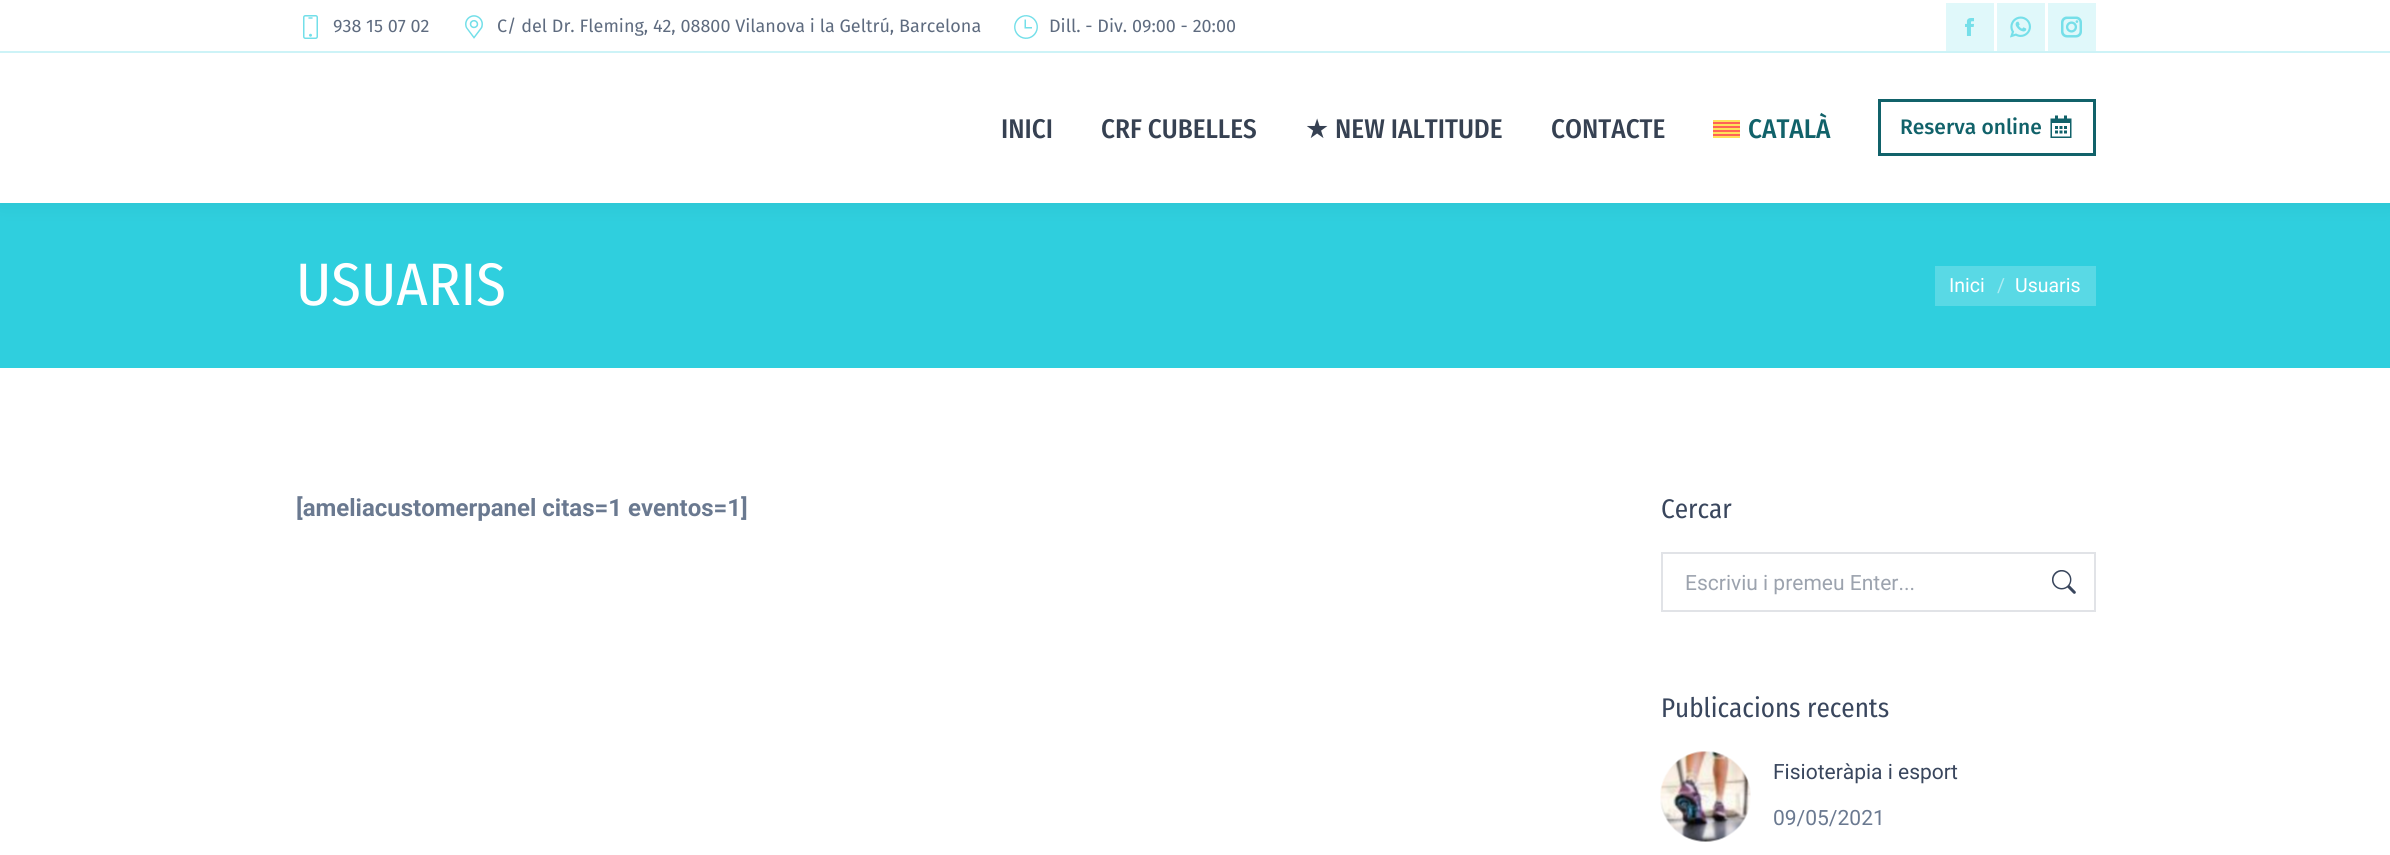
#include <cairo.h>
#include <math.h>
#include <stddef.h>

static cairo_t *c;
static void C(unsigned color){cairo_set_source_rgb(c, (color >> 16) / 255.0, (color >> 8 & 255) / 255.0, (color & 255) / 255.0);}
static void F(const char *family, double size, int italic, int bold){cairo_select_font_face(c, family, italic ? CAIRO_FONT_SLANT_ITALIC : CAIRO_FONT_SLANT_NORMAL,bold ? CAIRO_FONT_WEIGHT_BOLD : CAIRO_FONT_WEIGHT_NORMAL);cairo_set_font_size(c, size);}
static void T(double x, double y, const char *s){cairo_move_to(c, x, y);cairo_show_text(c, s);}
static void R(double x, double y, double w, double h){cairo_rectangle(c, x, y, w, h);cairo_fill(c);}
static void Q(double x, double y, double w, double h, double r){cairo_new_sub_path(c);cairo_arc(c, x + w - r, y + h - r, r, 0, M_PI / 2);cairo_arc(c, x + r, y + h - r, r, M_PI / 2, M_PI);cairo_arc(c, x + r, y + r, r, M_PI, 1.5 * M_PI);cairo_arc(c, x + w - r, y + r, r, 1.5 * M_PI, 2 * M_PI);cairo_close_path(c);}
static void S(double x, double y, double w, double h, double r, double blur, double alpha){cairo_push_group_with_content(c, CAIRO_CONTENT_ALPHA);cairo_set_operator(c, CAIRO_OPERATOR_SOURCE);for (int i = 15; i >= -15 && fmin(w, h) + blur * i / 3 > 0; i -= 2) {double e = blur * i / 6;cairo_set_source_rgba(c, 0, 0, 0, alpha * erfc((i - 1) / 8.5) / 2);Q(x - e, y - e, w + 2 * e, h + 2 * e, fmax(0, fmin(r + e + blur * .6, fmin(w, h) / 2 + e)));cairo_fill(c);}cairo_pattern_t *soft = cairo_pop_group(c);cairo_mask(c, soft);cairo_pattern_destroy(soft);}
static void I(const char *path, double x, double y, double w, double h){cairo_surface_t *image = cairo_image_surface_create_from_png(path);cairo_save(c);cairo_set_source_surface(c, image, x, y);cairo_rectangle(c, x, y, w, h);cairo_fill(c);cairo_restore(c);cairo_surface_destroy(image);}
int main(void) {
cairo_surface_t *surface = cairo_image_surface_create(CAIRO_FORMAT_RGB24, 2390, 855);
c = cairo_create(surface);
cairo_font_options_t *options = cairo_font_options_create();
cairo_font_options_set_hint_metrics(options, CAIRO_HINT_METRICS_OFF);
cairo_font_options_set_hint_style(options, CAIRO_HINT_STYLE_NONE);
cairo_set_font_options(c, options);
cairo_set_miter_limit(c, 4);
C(0xffffff);
cairo_paint(c);
C(0x2fcfde);
R(0,203,2390,165);
C(0x000000);
S(-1,-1,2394,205,0,11,.07);
C(0xffffff);
R(0,0,2390,203);
I("1.png",303,15,15,24);
F("Fira Sans",18,0,0);
C(0x5e6b7f);
T(333,32,"938 15 07 02");
I("2.png",465,15,18,24);
T(497,32,"C/ del Dr. Fleming, 42, 08800 Vilanova i la Geltrú, Barcelona");
I("3.png",1014,15,24,24);
T(1049,32,"Dill. - Div. 09:00 - 20:00");
C(0xe0f8fa);
R(1946,3,48,48);
I("4.png",1965,18,9,18);
R(1997,3,48,48);
I("5.png",2010,16,21,22);
R(2048,3,48,48);
I("6.png",2061,16,21,22);
C(0xcdf3f7);
R(0,51,2390,2);
F("Fira Sans Condensed Medium",27,0,0);
C(0x364152);
T(1001,138,"INICI");
T(1101,138,"CRF CUBELLES");
F("DejaVu Sans",27,0,0);
T(1305,138,"★");
F("Fira Sans Condensed Medium",27,0,0);
T(1335,138,"NEW IALTITUDE");
T(1551,138,"CONTACTE");
I("7.png",1713,120,27,18);
C(0x11626a);
T(1748,138,"CATALÀ");
cairo_rectangle(c,1879.5,100.5,215,54);
cairo_set_line_width(c,3);
cairo_stroke(c);
F("Fira Sans Medium",21,0,0);
T(1900,134,"Reserva online");
I("8.png",2050,115,22,23);
F("Fira Sans Condensed",60,0,0);
C(0xffffff);
T(296,305,"USUARIS");
C(0x59d9e5);
R(1935,266,161,40);
F("Roboto",19.5,0,0);
C(0xffffff);
T(1949,292,"Inici");
C(0xacecf2);
T(1997,292,"/");
C(0xffffff);
T(2015,292,"Usuaris");
F("Roboto",24,0,1);
C(0x6a7990);
T(296,516,"[ameliacustomerpanel citas=1 eventos=1]");
F("Fira Sans Condensed",27,0,0);
C(0x39465d);
T(1661,518,"Cercar");
cairo_rectangle(c,1662,553,433,58);
C(0xe1e3e7);
cairo_set_line_width(c,2);
cairo_stroke(c);
F("Roboto",21,0,0);
C(0x9ca3ae);
T(1685,590,"Escriviu i premeu Enter...");
I("9.png",2052,570,24,24);
F("Fira Sans Condensed",27,0,0);
C(0x39465d);
T(1661,717,"Publicacions recents");
I("10.png",1660,751,91,91);
F("Roboto",21,0,0);
T(1773,779,"Fisioteràpia i esport");
C(0x6a7990);
T(1773,825,"09/05/2021");
cairo_surface_write_to_png(surface, "o.png");
cairo_font_options_destroy(options);
cairo_destroy(c);
cairo_surface_destroy(surface);
return 0;
}
